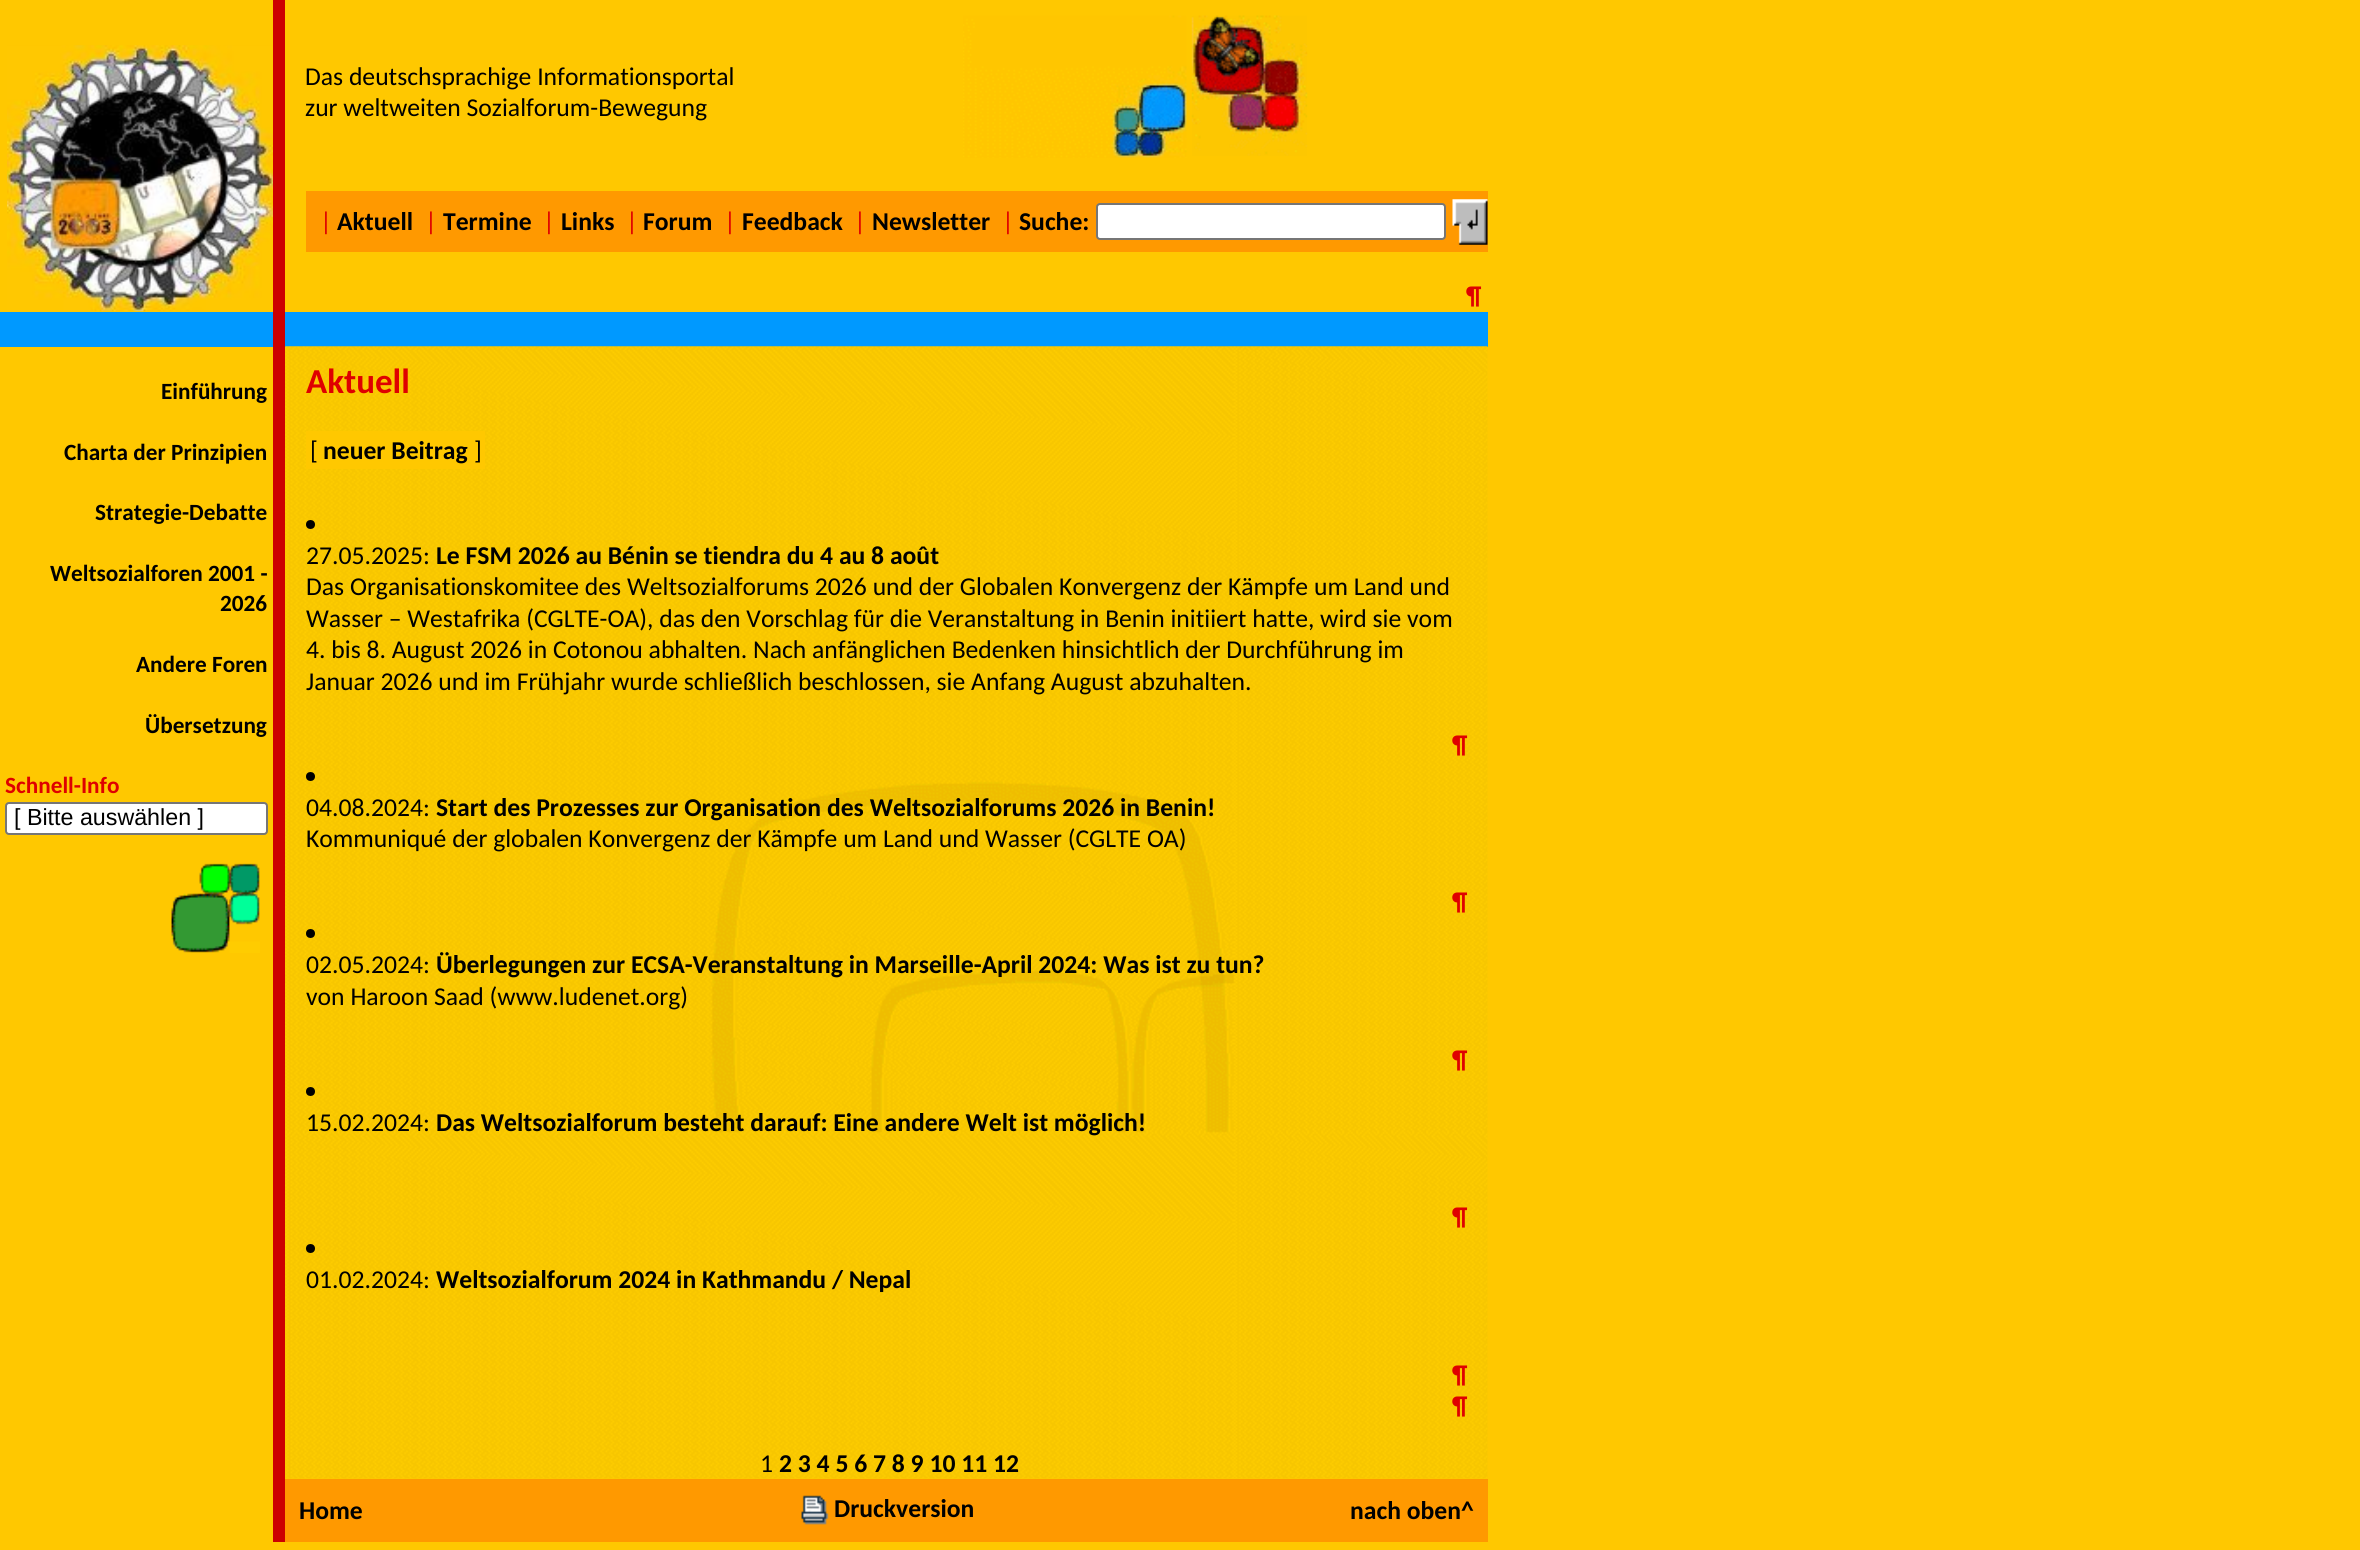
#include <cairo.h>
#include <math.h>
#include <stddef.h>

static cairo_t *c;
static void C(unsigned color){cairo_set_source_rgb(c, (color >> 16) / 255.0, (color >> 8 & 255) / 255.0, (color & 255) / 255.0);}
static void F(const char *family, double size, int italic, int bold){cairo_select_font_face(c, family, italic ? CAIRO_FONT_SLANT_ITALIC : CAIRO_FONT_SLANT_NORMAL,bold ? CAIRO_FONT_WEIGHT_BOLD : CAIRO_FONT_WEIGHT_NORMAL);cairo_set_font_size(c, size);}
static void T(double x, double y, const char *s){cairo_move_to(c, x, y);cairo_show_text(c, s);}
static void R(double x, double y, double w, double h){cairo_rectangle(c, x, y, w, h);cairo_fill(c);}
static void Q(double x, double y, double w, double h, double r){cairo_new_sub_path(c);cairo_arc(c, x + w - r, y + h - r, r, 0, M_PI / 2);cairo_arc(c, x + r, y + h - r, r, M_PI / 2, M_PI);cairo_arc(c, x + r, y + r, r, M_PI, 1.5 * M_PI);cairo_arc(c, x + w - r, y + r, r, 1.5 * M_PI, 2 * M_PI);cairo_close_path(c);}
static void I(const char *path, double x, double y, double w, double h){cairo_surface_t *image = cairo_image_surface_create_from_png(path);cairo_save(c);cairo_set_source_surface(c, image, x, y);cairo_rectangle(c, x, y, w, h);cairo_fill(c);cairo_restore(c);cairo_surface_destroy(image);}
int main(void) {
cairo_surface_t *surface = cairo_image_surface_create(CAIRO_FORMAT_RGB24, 2360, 1550);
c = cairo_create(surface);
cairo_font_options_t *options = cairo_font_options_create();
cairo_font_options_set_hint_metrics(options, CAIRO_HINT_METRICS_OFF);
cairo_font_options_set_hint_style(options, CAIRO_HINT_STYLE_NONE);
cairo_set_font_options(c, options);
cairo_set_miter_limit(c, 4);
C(0xffc800);
cairo_paint(c);
I("1.png",7,45,266,267);
C(0xcc0000);
R(273,0,12,1542);
F("Carlito",25.65,0,0);
C(0x000000);
T(305,85,"Das deutschsprachige Informationsportal");
T(305,116,"zur weltweiten Sozialforum-Bewegung");
I("2.png",963,15,224,143);
I("3.png",1191,15,117,141);
C(0xff9900);
R(306,191,1182,61);
C(0xdf0000);
T(320,230,"|");
F("Carlito",25.65,0,1);
C(0x000000);
T(337,230,"Aktuell");
F("Carlito",25.65,0,0);
C(0xdf0000);
T(425,230,"|");
F("Carlito",25.65,0,1);
C(0x000000);
T(443,230,"Termine");
F("Carlito",25.65,0,0);
C(0xdf0000);
T(543,230,"|");
F("Carlito",25.65,0,1);
C(0x000000);
T(561,230,"Links");
F("Carlito",25.65,0,0);
C(0xdf0000);
T(626,230,"|");
F("Carlito",25.65,0,1);
C(0x000000);
T(643,230,"Forum");
F("Carlito",25.65,0,0);
C(0xdf0000);
T(724,230,"|");
F("Carlito",25.65,0,1);
C(0x000000);
T(742,230,"Feedback");
F("Carlito",25.65,0,0);
C(0xdf0000);
T(854,230,"|");
F("Carlito",25.65,0,1);
C(0x000000);
T(872,230,"Newsletter");
F("Carlito",25.65,0,0);
C(0xdf0000);
T(1002,230,"|");
F("Carlito",25.65,0,1);
C(0x000000);
T(1019,230,"Suche:");
C(0xffffff);
Q(1097,204,348,35,3);
cairo_fill_preserve(c);
C(0x767676);
cairo_stroke(c);
I("4.png",1452,199,36,46);
C(0xdf0000);
T(1466,304,"¶");
C(0x0099ff);
R(0,312,273,35);
R(285,312,1203,35);
F("Carlito",23.25,0,1);
C(0x000000);
T(161,399,"Einführung");
T(64,460,"Charta der Prinzipien");
T(95,520,"Strategie-Debatte");
T(50,581,"Weltsozialforen 2001 -");
T(220,611,"2026");
T(136,672,"Andere Foren");
T(145,733,"Übersetzung");
C(0xdf0000);
T(5,793,"Schnell-Info");
C(0xffffff);
Q(6,803,261,31,3);
cairo_fill_preserve(c);
C(0x767676);
cairo_stroke(c);
F("Liberation Sans",23.25,0,0);
C(0x000000);
T(14,825,"[ Bitte auswählen ]");
I("5.png",171,863,89,90);
I("6.png",285,346,1203,1133);
F("Carlito",35,0,1);
C(0xdf0000);
T(306,393,"Aktuell");
C(0xffc800);
R(306,431,179,38);
F("Carlito",25.65,0,0);
C(0x000000);
T(310,459,"[");
F("Carlito",25.65,0,1);
T(323,459,"neuer Beitrag");
F("Carlito",25.65,0,0);
T(474,459,"]");
cairo_new_path(c);
cairo_arc(c,310.5,524.5,4.5,0,2 * M_PI);
cairo_fill(c);
T(306,564,"27.05.2025:");
F("Carlito",25.65,0,1);
T(436,564,"Le FSM 2026 au Bénin se tiendra du 4 au 8 août");
F("Carlito",25.65,0,0);
T(306,595,"Das Organisationskomitee des Weltsozialforums 2026 und der Globalen Konvergenz der Kämpfe um Land und");
T(306,627,"Wasser – Westafrika (CGLTE-OA), das den Vorschlag für die Veranstaltung in Benin initiiert hatte, wird sie vom");
T(306,658,"4. bis 8. August 2026 in Cotonou abhalten. Nach anfänglichen Bedenken hinsichtlich der Durchführung im");
T(306,690,"Januar 2026 und im Frühjahr wurde schließlich beschlossen, sie Anfang August abzuhalten.");
F("Carlito",25.65,0,1);
C(0xdf0000);
T(1452,753,"¶");
C(0x000000);
cairo_new_path(c);
cairo_arc(c,310.5,776.5,4.5,0,2 * M_PI);
cairo_fill(c);
F("Carlito",25.65,0,0);
T(306,816,"04.08.2024:");
F("Carlito",25.65,0,1);
T(436,816,"Start des Prozesses zur Organisation des Weltsozialforums 2026 in Benin!");
F("Carlito",25.65,0,0);
T(306,847,"Kommuniqué der globalen Konvergenz der Kämpfe um Land und Wasser (CGLTE OA)");
F("Carlito",25.65,0,1);
C(0xdf0000);
T(1452,910,"¶");
C(0x000000);
cairo_new_path(c);
cairo_arc(c,310.5,933.5,4.5,0,2 * M_PI);
cairo_fill(c);
F("Carlito",25.65,0,0);
T(306,973,"02.05.2024:");
F("Carlito",25.65,0,1);
T(436,973,"Überlegungen zur ECSA-Veranstaltung in Marseille-April 2024: Was ist zu tun?");
F("Carlito",25.65,0,0);
T(306,1005,"von Haroon Saad (www.ludenet.org)");
F("Carlito",25.65,0,1);
C(0xdf0000);
T(1452,1068,"¶");
C(0x000000);
cairo_new_path(c);
cairo_arc(c,310.5,1091.5,4.5,0,2 * M_PI);
cairo_fill(c);
F("Carlito",25.65,0,0);
T(306,1131,"15.02.2024:");
F("Carlito",25.65,0,1);
T(436,1131,"Das Weltsozialforum besteht darauf: Eine andere Welt ist möglich!");
C(0xdf0000);
T(1452,1225,"¶");
C(0x000000);
cairo_new_path(c);
cairo_arc(c,310.5,1248.5,4.5,0,2 * M_PI);
cairo_fill(c);
F("Carlito",25.65,0,0);
T(306,1288,"01.02.2024:");
F("Carlito",25.65,0,1);
T(436,1288,"Weltsozialforum 2024 in Kathmandu / Nepal");
C(0xdf0000);
T(1452,1383,"¶");
T(1452,1414,"¶");
F("Carlito",25.65,0,0);
C(0x000000);
T(760,1472,"1");
F("Carlito",25.65,0,1);
T(779,1472,"2 3 4 5 6 7 8 9 10 11 12");
C(0xff9900);
R(285,1479,1203,63);
C(0x000000);
T(299,1519,"Home");
I("7.png",801,1495,28,30);
T(834,1517,"Druckversion");
T(1350,1519,"nach oben^");
cairo_surface_write_to_png(surface, "o.png");
cairo_font_options_destroy(options);
cairo_destroy(c);
cairo_surface_destroy(surface);
return 0;
}
